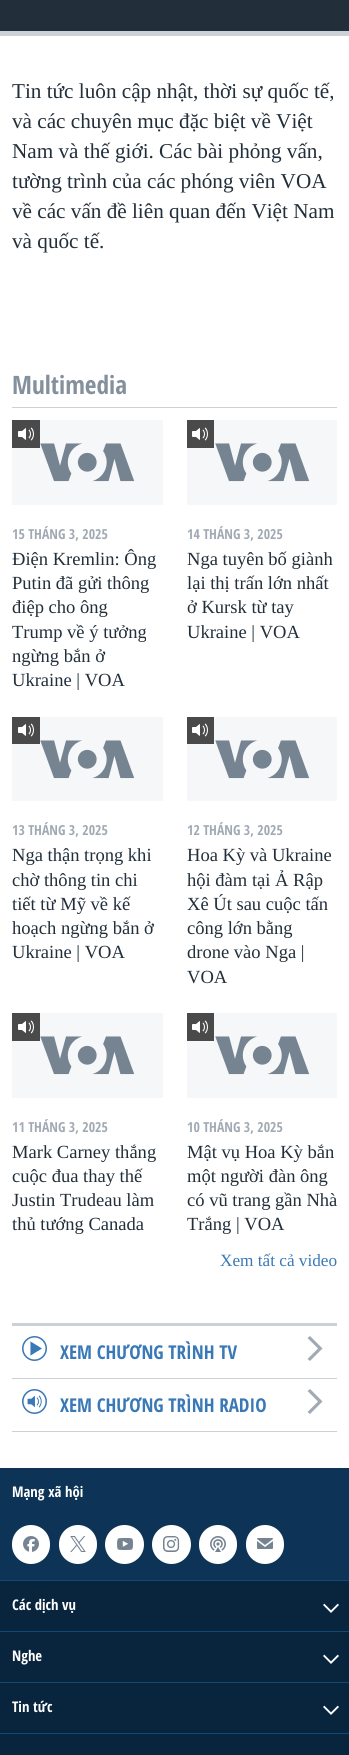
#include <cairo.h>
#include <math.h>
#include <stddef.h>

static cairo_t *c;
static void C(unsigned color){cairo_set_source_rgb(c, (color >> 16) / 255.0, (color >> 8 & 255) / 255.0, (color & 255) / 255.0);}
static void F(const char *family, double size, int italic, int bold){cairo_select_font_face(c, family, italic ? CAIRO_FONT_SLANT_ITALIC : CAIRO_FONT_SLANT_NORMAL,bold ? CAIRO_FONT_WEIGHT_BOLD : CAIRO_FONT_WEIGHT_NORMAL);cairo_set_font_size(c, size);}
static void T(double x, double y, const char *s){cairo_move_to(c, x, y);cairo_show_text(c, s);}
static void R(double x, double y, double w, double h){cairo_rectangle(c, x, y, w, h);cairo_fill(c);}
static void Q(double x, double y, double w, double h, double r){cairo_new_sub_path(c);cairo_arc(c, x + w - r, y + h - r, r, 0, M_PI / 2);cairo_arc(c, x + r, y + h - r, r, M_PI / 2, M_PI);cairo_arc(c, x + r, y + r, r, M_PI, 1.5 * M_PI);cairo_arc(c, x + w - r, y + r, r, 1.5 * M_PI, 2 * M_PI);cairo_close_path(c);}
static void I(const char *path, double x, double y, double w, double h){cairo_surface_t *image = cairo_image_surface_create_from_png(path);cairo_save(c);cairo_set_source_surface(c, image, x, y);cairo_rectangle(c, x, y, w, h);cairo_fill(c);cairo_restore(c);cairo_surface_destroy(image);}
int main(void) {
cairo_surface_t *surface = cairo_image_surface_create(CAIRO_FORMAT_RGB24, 349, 1755);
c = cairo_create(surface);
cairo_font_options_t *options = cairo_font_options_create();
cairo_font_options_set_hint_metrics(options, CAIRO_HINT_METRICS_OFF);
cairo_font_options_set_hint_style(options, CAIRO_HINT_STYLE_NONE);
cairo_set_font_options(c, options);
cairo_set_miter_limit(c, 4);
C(0xffffff);
cairo_paint(c);
C(0x222f3a);
R(0,0,349,31);
C(0xcbd1d6);
R(0,31,349,5);
F("Tinos",20,0,0);
C(0x222f3a);
T(12,98,"Tin tức luôn cập nhật, thời sự quốc tế,");
T(12,128,"và các chuyên mục đặc biệt về Việt");
T(12,158,"Nam và thế giới. Các bài phỏng vấn,");
T(12,188,"tường trình của các phóng viên VOA");
T(12,218,"về các vấn đề liên quan đến Việt Nam");
T(12,248,"và quốc tế.");
C(0xcbd1d6);
R(12,407,325,1);
F("Open Sans Condensed",28.5,0,1);
C(0x84919d);
T(12,394,"Multimedia");
C(0xf6f7f8);
R(12,420,151,85);
I("1.png",40,443,95,39);
C(0x4a4a4a);
R(12,420,28,28);
I("2.png",18,427,16,14);
F("Open Sans Condensed",15.5,0,1);
C(0xa1aab4);
T(12,539,"15 THÁNG 3, 2025");
F("Tinos",17.5,0,0);
C(0x222f3a);
T(12,565,"Điện Kremlin: Ông");
T(12,589,"Putin đã gửi thông");
T(12,613,"điệp cho ông");
T(12,638,"Trump về ý tưởng");
T(12,662,"ngừng bắn ở");
T(12,686,"Ukraine | VOA");
C(0xf6f7f8);
R(187,420,150,85);
I("1.png",215,443,95,39);
C(0x4a4a4a);
R(187,420,27,28);
I("2.png",192,427,16,14);
F("Open Sans Condensed",15.5,0,1);
C(0xa1aab4);
T(187,539,"14 THÁNG 3, 2025");
F("Tinos",17.5,0,0);
C(0x222f3a);
T(187,565,"Nga tuyên bố giành");
T(187,589,"lại thị trấn lớn nhất");
T(187,613,"ở Kursk từ tay");
T(187,638,"Ukraine | VOA");
C(0xf6f7f8);
R(12,717,151,84);
I("1.png",40,740,95,39);
C(0x4a4a4a);
R(12,717,28,27);
I("2.png",18,723,16,14);
F("Open Sans Condensed",15.5,0,1);
C(0xa1aab4);
T(12,835,"13 THÁNG 3, 2025");
F("Tinos",17.5,0,0);
C(0x222f3a);
T(12,861,"Nga thận trọng khi");
T(12,886,"chờ thông tin chi");
T(12,910,"tiết từ Mỹ về kế");
T(12,934,"hoạch ngừng bắn ở");
T(12,958,"Ukraine | VOA");
C(0xf6f7f8);
R(187,717,150,84);
I("1.png",215,740,95,39);
C(0x4a4a4a);
R(187,717,27,27);
I("2.png",192,723,16,14);
F("Open Sans Condensed",15.5,0,1);
C(0xa1aab4);
T(187,835,"12 THÁNG 3, 2025");
F("Tinos",17.5,0,0);
C(0x222f3a);
T(187,861,"Hoa Kỳ và Ukraine");
T(187,886,"hội đàm tại Ả Rập");
T(187,910,"Xê Út sau cuộc tấn");
T(187,934,"công lớn bằng");
T(187,958,"drone vào Nga |");
T(187,983,"VOA");
C(0xf6f7f8);
R(12,1013,151,85);
I("1.png",40,1036,95,39);
C(0x4a4a4a);
R(12,1013,28,28);
I("2.png",18,1020,16,14);
F("Open Sans Condensed",15.5,0,1);
C(0xa1aab4);
T(12,1132,"11 THÁNG 3, 2025");
F("Tinos",17.5,0,0);
C(0x222f3a);
T(12,1158,"Mark Carney thắng");
T(12,1182,"cuộc đua thay thế");
T(12,1206,"Justin Trudeau làm");
T(12,1230,"thủ tướng Canada");
C(0xf6f7f8);
R(187,1013,150,85);
I("1.png",215,1036,95,39);
C(0x4a4a4a);
R(187,1013,27,28);
I("2.png",192,1020,16,14);
F("Open Sans Condensed",15.5,0,1);
C(0xa1aab4);
T(187,1132,"10 THÁNG 3, 2025");
F("Tinos",17.5,0,0);
C(0x222f3a);
T(187,1158,"Mật vụ Hoa Kỳ bắn");
T(187,1182,"một người đàn ông");
T(187,1206,"có vũ trang gần Nhà");
T(187,1230,"Trắng | VOA");
F("Tinos",16.25,0,0);
C(0x3a79b7);
T(220,1266,"Xem tất cả video");
C(0xcbd1d6);
R(12,1323,325,3);
R(12,1378,325,1);
I("3.png",22,1336,25,25);
F("Open Sans Condensed",21.4,0,1);
C(0x3a79b7);
T(60,1359,"XEM CHƯƠNG TRÌNH TV");
C(0xa1aab4);
cairo_new_path(c);
cairo_move_to(c,310,1361);
cairo_line_to(c,322.5,1348.5);
cairo_line_to(c,310,1336);
cairo_line_to(c,307.5,1338);
cairo_line_to(c,318,1348.5);
cairo_line_to(c,307.5,1359);
cairo_close_path(c);
cairo_fill(c);
C(0xcbd1d6);
R(12,1431,325,1);
I("4.png",22,1389,25,25);
C(0x3a79b7);
T(60,1412,"XEM CHƯƠNG TRÌNH RADIO");
C(0xa1aab4);
cairo_new_path(c);
cairo_move_to(c,310,1414);
cairo_line_to(c,322.5,1401.5);
cairo_line_to(c,310,1389);
cairo_line_to(c,307.5,1391);
cairo_line_to(c,318,1401.5);
cairo_line_to(c,307.5,1412);
cairo_close_path(c);
cairo_fill(c);
C(0x0d3456);
R(0,1468,349,112);
F("Open Sans Condensed",16.5,0,1);
C(0xffffff);
T(12,1497,"Mạng xã hội");
Q(12,1525,38,39,19);
cairo_fill(c);
I("5.png",23,1536,16,16);
Q(59,1525,38,39,19);
cairo_fill(c);
I("6.png",70,1536,16,16);
cairo_arc(c,124.5,1544.5,19.5,0,2 * M_PI);
cairo_fill(c);
I("7.png",117,1538,16,12);
cairo_arc(c,171.5,1544.5,19.5,0,2 * M_PI);
cairo_fill(c);
I("8.png",163,1536,17,16);
Q(199,1525,38,39,19);
cairo_fill(c);
I("9.png",210,1536,16,16);
Q(246,1525,38,39,19);
cairo_fill(c);
I("10.png",257,1538,16,11);
C(0x134976);
R(0,1580,349,1);
C(0x09243d);
R(0,1581,349,50);
C(0xffffff);
T(12,1610,"Các dịch vụ");
I("11.png",323,1603,16,10);
C(0x134976);
R(0,1631,349,1);
C(0x09243d);
R(0,1632,349,50);
C(0xffffff);
T(12,1661,"Nghe");
I("11.png",323,1654,16,10);
C(0x134976);
R(0,1682,349,1);
C(0x09243d);
R(0,1683,349,50);
C(0xffffff);
T(12,1712,"Tin tức");
I("11.png",323,1705,16,10);
C(0x134976);
R(0,1733,349,1);
C(0x09243d);
R(0,1734,349,21);
cairo_surface_write_to_png(surface, "o.png");
cairo_font_options_destroy(options);
cairo_destroy(c);
cairo_surface_destroy(surface);
return 0;
}
